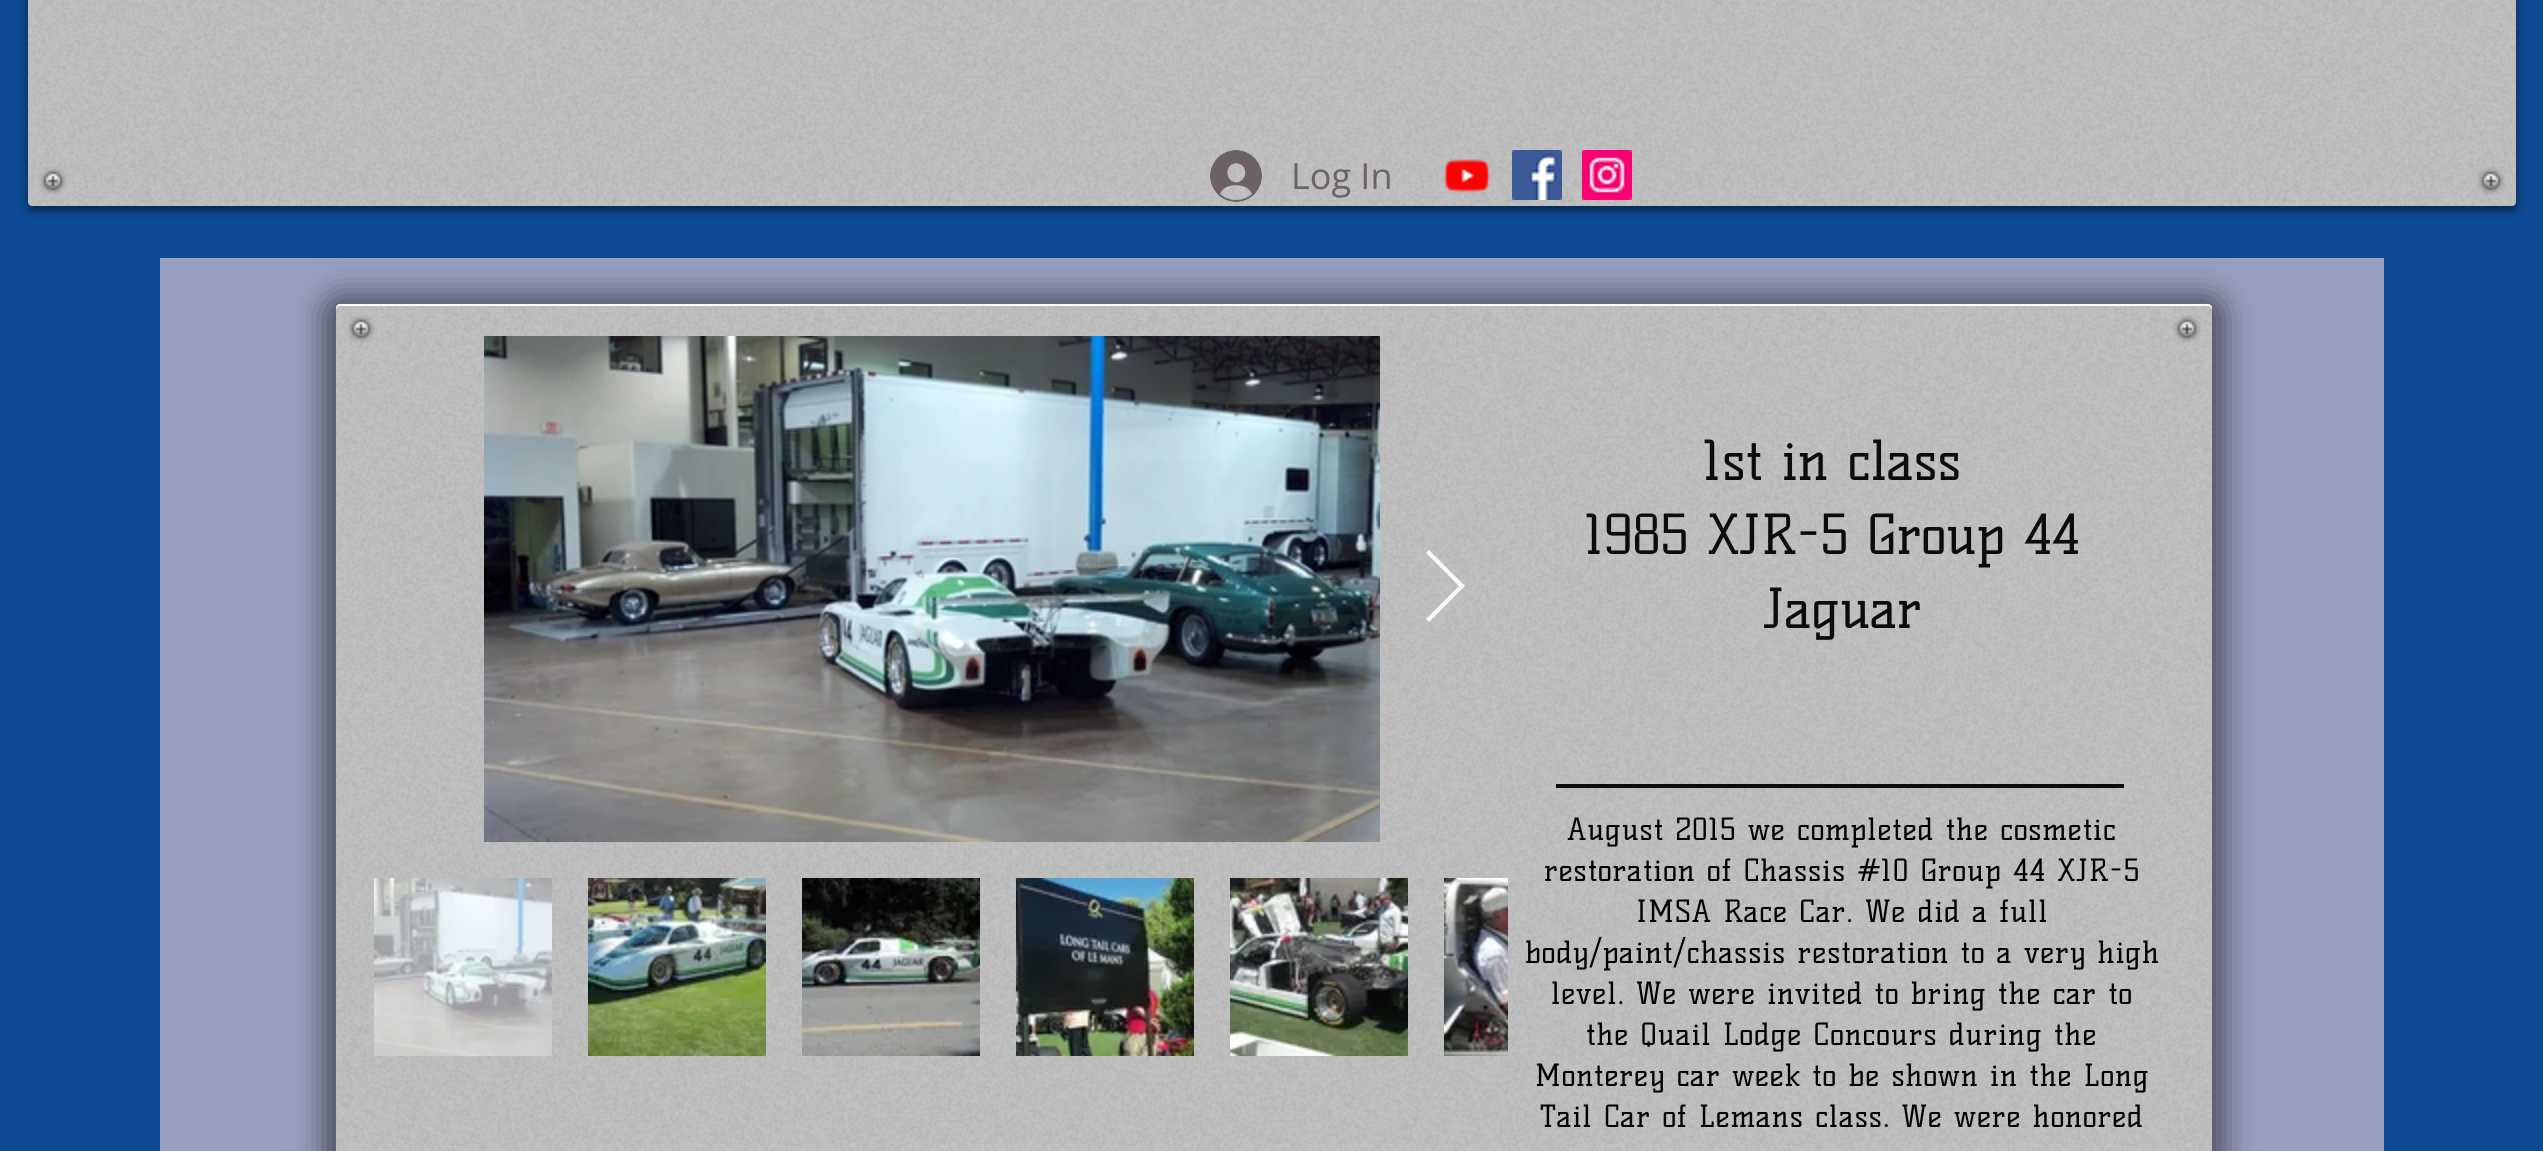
#include <cairo.h>
#include <math.h>
#include <stddef.h>

static cairo_t *c;
static void C(unsigned color){cairo_set_source_rgb(c, (color >> 16) / 255.0, (color >> 8 & 255) / 255.0, (color & 255) / 255.0);}
static void F(const char *family, double size, int italic, int bold){cairo_select_font_face(c, family, italic ? CAIRO_FONT_SLANT_ITALIC : CAIRO_FONT_SLANT_NORMAL,bold ? CAIRO_FONT_WEIGHT_BOLD : CAIRO_FONT_WEIGHT_NORMAL);cairo_set_font_size(c, size);}
static void T(double x, double y, const char *s){cairo_move_to(c, x, y);cairo_show_text(c, s);}
static void L(double x, double y, const char *s, double letter, double word){cairo_move_to(c, x, y);while (*s) {char ch[5] = {0};int n = 0;do ch[n++] = *s++; while ((*s & 0xC0) == 0x80);cairo_show_text(c, ch);cairo_rel_move_to(c, letter + word * (*ch == ' '), 0);}}
static void R(double x, double y, double w, double h){cairo_rectangle(c, x, y, w, h);cairo_fill(c);}
static void Q(double x, double y, double w, double h, double r){cairo_new_sub_path(c);cairo_arc(c, x + w - r, y + h - r, r, 0, M_PI / 2);cairo_arc(c, x + r, y + h - r, r, M_PI / 2, M_PI);cairo_arc(c, x + r, y + r, r, M_PI, 1.5 * M_PI);cairo_arc(c, x + w - r, y + r, r, 1.5 * M_PI, 2 * M_PI);cairo_close_path(c);}
static void S(double x, double y, double w, double h, double r, double blur, double alpha){cairo_push_group_with_content(c, CAIRO_CONTENT_ALPHA);cairo_set_operator(c, CAIRO_OPERATOR_SOURCE);for (int i = 15; i >= -15 && fmin(w, h) + blur * i / 3 > 0; i -= 2) {double e = blur * i / 6;cairo_set_source_rgba(c, 0, 0, 0, alpha * erfc((i - 1) / 8.5) / 2);Q(x - e, y - e, w + 2 * e, h + 2 * e, fmax(0, fmin(r + e + blur * .6, fmin(w, h) / 2 + e)));cairo_fill(c);}cairo_pattern_t *soft = cairo_pop_group(c);cairo_mask(c, soft);cairo_pattern_destroy(soft);}
static void I(const char *path, double x, double y, double w, double h){cairo_surface_t *image = cairo_image_surface_create_from_png(path);cairo_save(c);cairo_set_source_surface(c, image, x, y);cairo_rectangle(c, x, y, w, h);cairo_fill(c);cairo_restore(c);cairo_surface_destroy(image);}
int main(void) {
cairo_surface_t *surface = cairo_image_surface_create(CAIRO_FORMAT_RGB24, 2543, 1151);
c = cairo_create(surface);
cairo_font_options_t *options = cairo_font_options_create();
cairo_font_options_set_hint_metrics(options, CAIRO_HINT_METRICS_OFF);
cairo_font_options_set_hint_style(options, CAIRO_HINT_STYLE_NONE);
cairo_set_font_options(c, options);
cairo_set_miter_limit(c, 4);
C(0x0d4b95);
cairo_paint(c);
C(0x000000);
S(28,-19,2488,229,4,5,.53);
C(0xc2c2c2);
Q(28,-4,2488,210,4);
cairo_fill(c);
I("1.png",28,0,2488,206);
I("2.png",39,167,28,28);
I("3.png",1210,150,52,52);
F("Open Sans",36,0,0);
C(0x6c6166);
T(1291,189,"Log In");
I("4.png",1443,159,48,34);
I("5.png",1512,150,50,50);
I("6.png",1582,150,50,50);
I("7.png",2477,167,28,28);
C(0x99a0bf);
R(160,258,2224,893);
C(0x000000);
S(324,296,1900,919,16,16,.53);
C(0xc2c2c2);
Q(336,304,1876,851,4);
cairo_fill(c);
I("15.png",336,304,1876,847);
I("8.png",484,336,896,506);
cairo_set_source_rgba(c,1,1,1,0.9);
cairo_new_path(c);
cairo_move_to(c,1426,553);
cairo_line_to(c,1429,550);
cairo_line_to(c,1465,586);
cairo_line_to(c,1429,622);
cairo_line_to(c,1426,619);
cairo_line_to(c,1459,586);
cairo_close_path(c);
cairo_fill(c);
I("9.png",374,878,178,178);
I("10.png",588,878,178,178);
I("11.png",802,878,178,178);
I("12.png",1016,878,178,178);
I("13.png",1230,878,178,178);
I("14.png",1444,878,64,178);
cairo_set_source_rgba(c,1,1,1,0.92);
cairo_new_path(c);
cairo_move_to(c,340,306);
cairo_line_to(c,2208,306);
cairo_curve_to(c,2210,306,2212,308,2212,310);
cairo_line_to(c,2212,308);
cairo_curve_to(c,2212,306,2210,304,2208,304);
cairo_line_to(c,340,304);
cairo_curve_to(c,338,304,336,306,336,308);
cairo_line_to(c,336,310);
cairo_curve_to(c,336,308,338,306,340,306);
cairo_close_path(c);
cairo_fill(c);
I("16.png",347,315,28,28);
I("17.png",2173,315,28,28);
F("Kelly Slab",54,0,0);
C(0x0c0c0c);
T(1703,480,"1st in class");
T(1585,554,"1985 XJR-5 Group 44");
T(1763,628,"Jaguar");
R(1556,784,568,4);
F("Kelly Slab",30,0,0);
C(0x000000);
L(1567,840,"August 2015 we completed the cosmetic",.9,0);
L(1544,881,"restoration of Chassis #10 Group 44 XJR-5",.9,0);
L(1636,922,"IMSA Race Car. We did a full",.9,0);
L(1525,963,"body/paint/chassis restoration to a very high",.9,0);
L(1551,1004,"level. We were invited to bring the car to",.9,0);
L(1586,1045,"the Quail Lodge Concours during the",.9,0);
L(1535,1086,"Monterey car week to be shown in the Long",.9,0);
L(1540,1127,"Tail Car of Lemans class. We were honored",.9,0);
cairo_surface_write_to_png(surface, "o.png");
cairo_font_options_destroy(options);
cairo_destroy(c);
cairo_surface_destroy(surface);
return 0;
}
